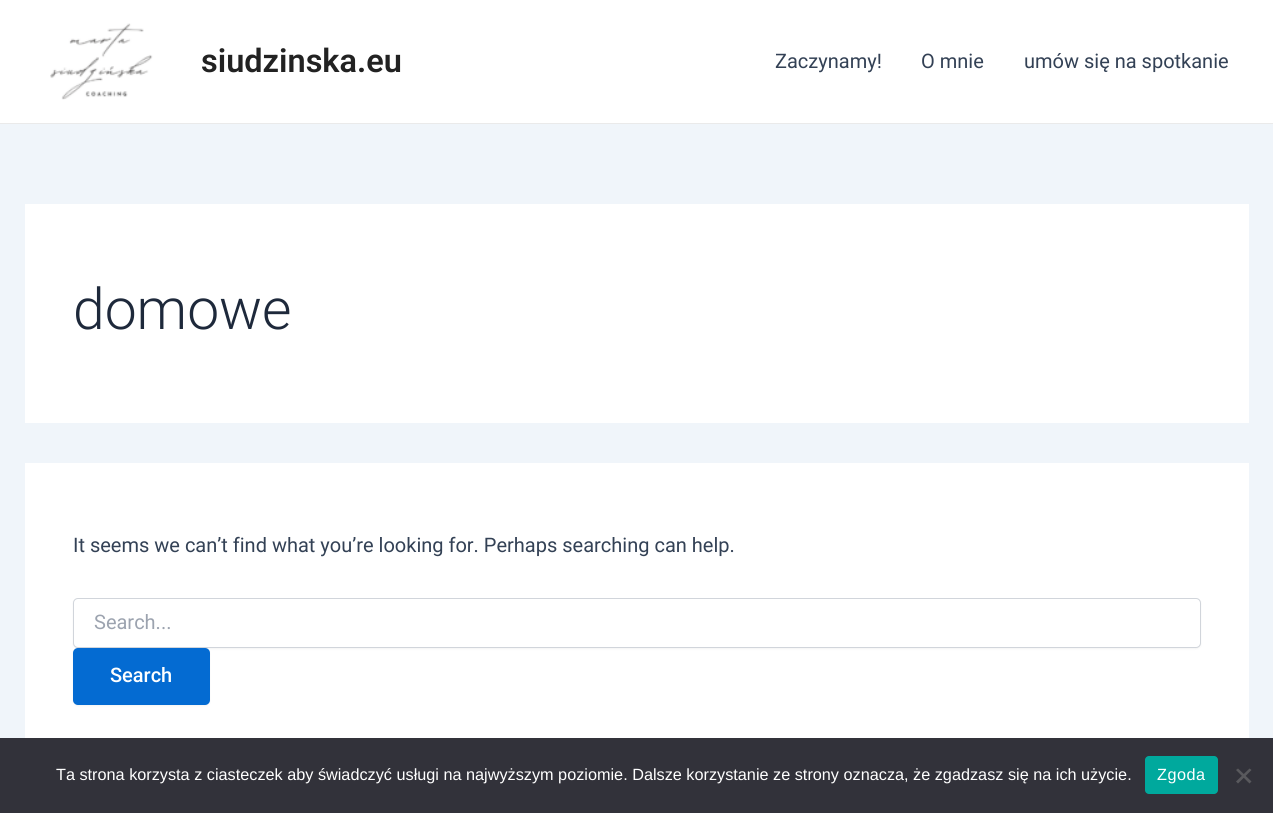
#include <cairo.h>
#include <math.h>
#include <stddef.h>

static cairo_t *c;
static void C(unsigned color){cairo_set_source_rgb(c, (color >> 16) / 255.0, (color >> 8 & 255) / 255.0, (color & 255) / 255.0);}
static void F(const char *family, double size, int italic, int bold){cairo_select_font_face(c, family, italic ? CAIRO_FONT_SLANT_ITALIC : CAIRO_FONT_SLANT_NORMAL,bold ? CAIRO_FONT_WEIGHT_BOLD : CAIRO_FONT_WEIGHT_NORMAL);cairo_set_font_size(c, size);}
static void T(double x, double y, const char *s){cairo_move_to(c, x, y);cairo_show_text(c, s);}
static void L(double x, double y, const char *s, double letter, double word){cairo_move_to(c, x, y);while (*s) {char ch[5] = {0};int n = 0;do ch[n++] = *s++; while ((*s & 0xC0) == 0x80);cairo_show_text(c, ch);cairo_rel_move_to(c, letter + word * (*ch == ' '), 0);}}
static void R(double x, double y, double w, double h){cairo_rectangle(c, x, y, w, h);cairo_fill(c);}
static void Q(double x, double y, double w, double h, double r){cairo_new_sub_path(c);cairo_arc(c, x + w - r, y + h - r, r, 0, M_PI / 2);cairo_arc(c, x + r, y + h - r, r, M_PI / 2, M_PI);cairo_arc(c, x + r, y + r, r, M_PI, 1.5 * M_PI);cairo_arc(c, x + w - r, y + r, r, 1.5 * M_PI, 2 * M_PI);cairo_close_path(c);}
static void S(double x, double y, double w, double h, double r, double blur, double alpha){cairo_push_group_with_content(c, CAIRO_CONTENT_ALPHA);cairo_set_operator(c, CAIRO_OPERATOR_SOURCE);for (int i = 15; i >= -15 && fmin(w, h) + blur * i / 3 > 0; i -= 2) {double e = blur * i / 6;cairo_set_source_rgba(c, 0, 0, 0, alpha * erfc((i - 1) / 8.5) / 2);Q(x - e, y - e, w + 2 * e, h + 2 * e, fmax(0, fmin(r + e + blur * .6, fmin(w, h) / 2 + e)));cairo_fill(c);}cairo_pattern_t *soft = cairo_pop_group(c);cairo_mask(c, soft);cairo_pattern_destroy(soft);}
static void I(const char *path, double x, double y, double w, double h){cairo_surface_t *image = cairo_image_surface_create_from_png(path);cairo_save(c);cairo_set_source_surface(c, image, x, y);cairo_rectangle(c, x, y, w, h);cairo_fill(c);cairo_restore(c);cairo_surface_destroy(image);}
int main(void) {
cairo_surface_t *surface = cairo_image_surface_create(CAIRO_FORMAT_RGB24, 1273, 813);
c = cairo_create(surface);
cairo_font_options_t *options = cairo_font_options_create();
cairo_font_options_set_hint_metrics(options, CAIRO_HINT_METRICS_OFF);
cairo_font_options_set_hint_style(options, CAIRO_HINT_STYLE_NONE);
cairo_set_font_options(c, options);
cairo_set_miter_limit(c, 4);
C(0xf0f5fa);
cairo_paint(c);
C(0xffffff);
R(0,0,1273,123);
C(0xeaeaea);
R(0,123,1273,1);
I("1.png",50,23,103,77);
F("Roboto SemiBold",32.5,0,0);
C(0x222222);
T(201,72,"siudzinska.eu");
F("Roboto",20,0,0);
C(0x334155);
T(775,68,"Zaczynamy!");
T(921,68,"O mnie");
T(1024,68,"umów się na spotkanie");
C(0xffffff);
R(25,204,1224,219);
F("Roboto Light",57,0,0);
C(0x1e293b);
T(73,329,"domowe");
C(0xffffff);
R(25,463,1224,275);
F("Roboto",20,0,0);
C(0x334155);
T(73,552,"It seems we can’t find what you’re looking for. Perhaps searching can help.");
C(0x000000);
S(73,599,1128,50,5,1,.05);
C(0xffffff);
Q(73.5,598.5,1127,49,4.5);
cairo_fill_preserve(c);
C(0xd1d5db);
cairo_set_line_width(c,1);
cairo_stroke(c);
C(0x9ca3af);
T(94,629,"Search...");
C(0x000000);
S(73,649,137,57,5,1,.05);
C(0x046bd2);
Q(73,648,137,57,5);
cairo_fill(c);
F("Roboto Medium",20,0,0);
C(0xffffff);
T(110,682,"Search");
C(0x32323a);
R(0,738,1273,75);
F("Liberation Sans",16.25,0,0);
C(0xffffff);
T(56,780,"Ta strona korzysta z ciasteczek aby świadczyć usługi na najwyższym poziomie. Dalsze korzystanie ze strony oznacza, że zgadzasz się na ich użycie.");
C(0x00a99d);
Q(1145,756,73,38,4);
cairo_fill(c);
C(0xffffff);
L(1157,780,"Zgoda",.5,0);
C(0x59595d);
cairo_new_path(c);
cairo_move_to(c,1249.5,768.5);
cairo_line_to(c,1251.5,770);
cairo_line_to(c,1238,783.5);
cairo_line_to(c,1236,781.5);
cairo_close_path(c);
cairo_fill(c);
cairo_new_path(c);
cairo_move_to(c,1236,770);
cairo_line_to(c,1238,768.5);
cairo_line_to(c,1251.5,781.5);
cairo_line_to(c,1249.5,783.5);
cairo_close_path(c);
cairo_fill(c);
cairo_surface_write_to_png(surface, "o.png");
cairo_font_options_destroy(options);
cairo_destroy(c);
cairo_surface_destroy(surface);
return 0;
}
